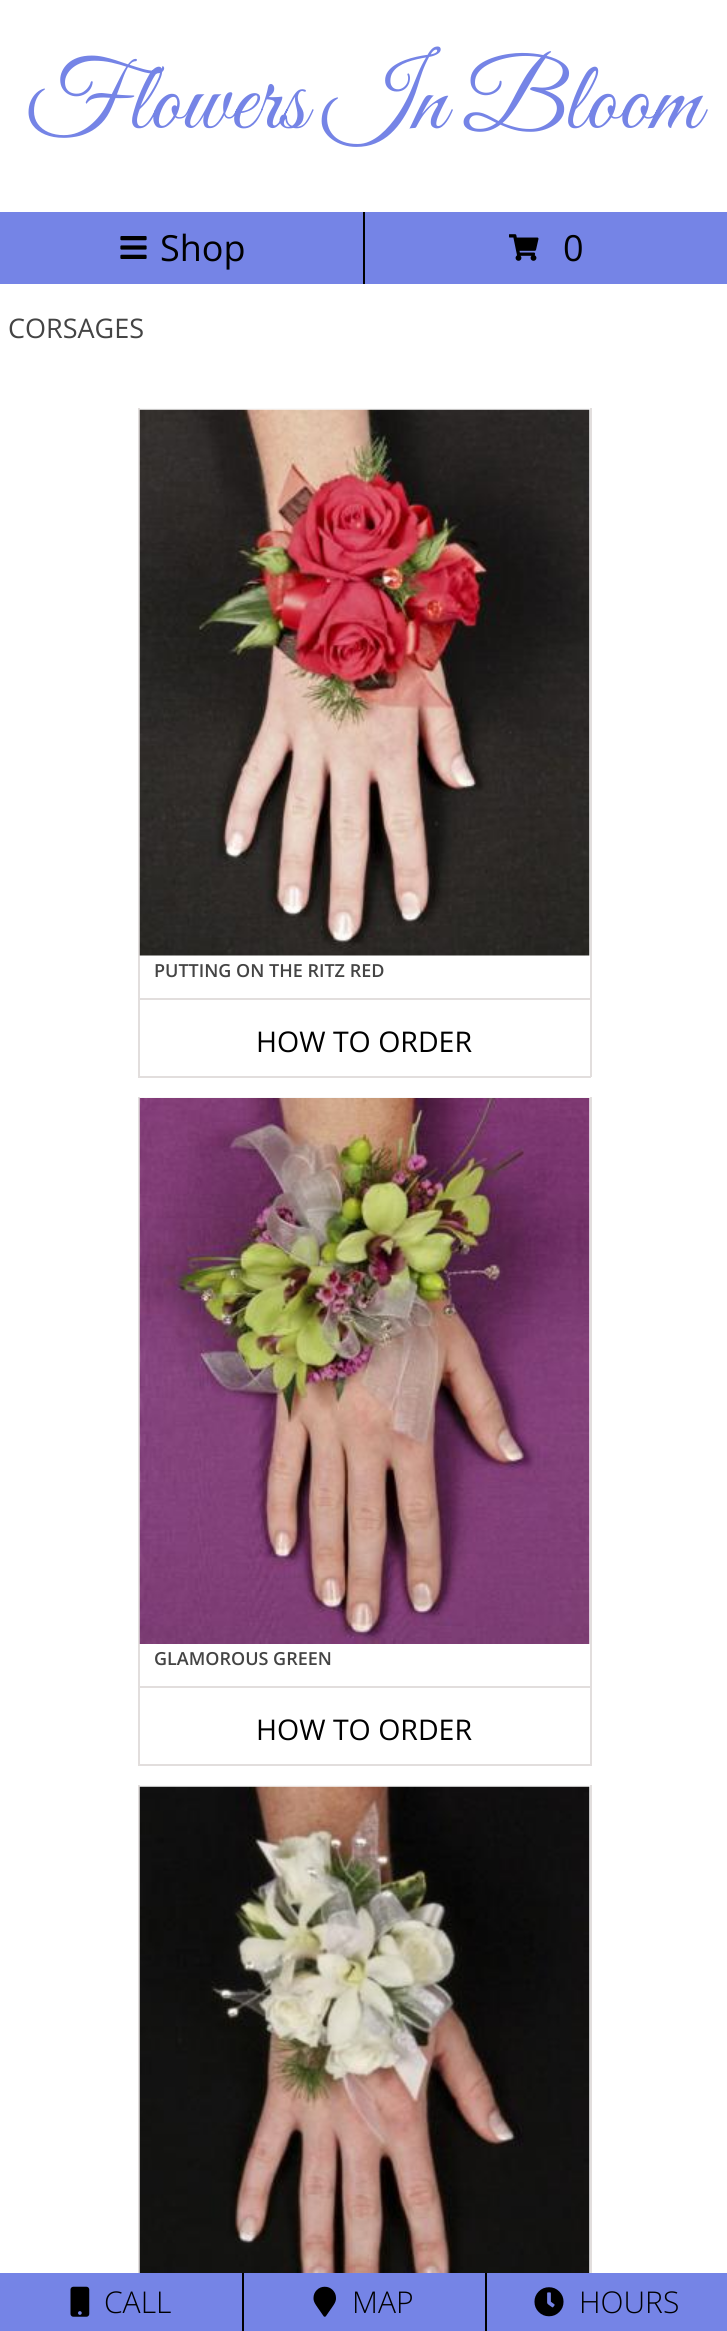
#include <cairo.h>
#include <math.h>
#include <stddef.h>

static cairo_t *c;
static void C(unsigned color){cairo_set_source_rgb(c, (color >> 16) / 255.0, (color >> 8 & 255) / 255.0, (color & 255) / 255.0);}
static void F(const char *family, double size, int italic, int bold){cairo_select_font_face(c, family, italic ? CAIRO_FONT_SLANT_ITALIC : CAIRO_FONT_SLANT_NORMAL,bold ? CAIRO_FONT_WEIGHT_BOLD : CAIRO_FONT_WEIGHT_NORMAL);cairo_set_font_size(c, size);}
static void T(double x, double y, const char *s){cairo_move_to(c, x, y);cairo_show_text(c, s);}
static void R(double x, double y, double w, double h){cairo_rectangle(c, x, y, w, h);cairo_fill(c);}
static void I(const char *path, double x, double y, double w, double h){cairo_surface_t *image = cairo_image_surface_create_from_png(path);cairo_save(c);cairo_set_source_surface(c, image, x, y);cairo_rectangle(c, x, y, w, h);cairo_fill(c);cairo_restore(c);cairo_surface_destroy(image);}
int main(void) {
cairo_surface_t *surface = cairo_image_surface_create(CAIRO_FORMAT_RGB24, 727, 2331);
c = cairo_create(surface);
cairo_font_options_t *options = cairo_font_options_create();
cairo_font_options_set_hint_metrics(options, CAIRO_HINT_METRICS_OFF);
cairo_font_options_set_hint_style(options, CAIRO_HINT_STYLE_NONE);
cairo_set_font_options(c, options);
cairo_set_miter_limit(c, 4);
C(0xffffff);
cairo_paint(c);
F("Great Vibes",97.5,0,0);
C(0x7584e6);
T(26,128,"Flowers In Bloom");
C(0x000000);
R(363,212,2,72);
C(0x7584e6);
R(0,212,363,72);
I("1.png",120,236,27,23);
F("Open Sans",36,0,0);
C(0x000000);
T(160,261,"Shop");
C(0x7584e6);
R(365,212,362,72);
I("2.png",509,234,30,27);
C(0x000000);
T(563,261,"0");
F("Open Sans",27,0,0);
C(0x444444);
T(8,338,"CORSAGES");
C(0xf9f9f9);
R(138,408,453,2);
C(0xe2dedd);
R(590,408,2,669);
R(138,1076,453,2);
R(138,408,2,669);
I("3.png",139,409,451,547);
F("Open Sans SemiBold",18,0,0);
C(0x444444);
T(154,977,"PUTTING ON THE RITZ RED");
C(0xe2dedd);
R(140,998,450,2);
F("Open Sans",28.5,0,0);
C(0x000000);
T(256,1052,"HOW TO ORDER");
C(0xf9f9f9);
R(138,1097,453,2);
C(0xe2dedd);
R(590,1097,2,669);
R(138,1764,453,2);
R(138,1097,2,669);
I("4.png",139,1098,451,546);
cairo_save(c);
cairo_rectangle(c,155,1646,280,25);
cairo_clip(c);
F("Open Sans SemiBold",18,0,0);
C(0x444444);
T(154,1665,"GLAMOROUS GREEN");
cairo_restore(c);
R(140,1686,450,2);
C(0x000000);
T(256,1740,"HOW TO ORDER");
C(0xf9f9f9);
R(138,1785,453,2);
C(0xe2dedd);
R(590,1785,2,488);
R(138,1785,2,488);
I("5.png",139,1786,451,487);
C(0x7584e6);
R(0,2273,242,58);
I("6.png",70,2286,20,31);
F("Open Sans Light",30,0,0);
C(0x000000);
T(104,2313,"CALL");
C(0x7584e6);
R(244,2273,241,58);
C(0x000000);
R(242,2273,2,58);
I("7.png",313,2286,23,31);
T(352,2313,"MAP");
C(0x7584e6);
R(487,2273,240,58);
C(0x000000);
R(485,2273,2,58);
I("8.png",534,2287,30,30);
T(579,2313,"HOURS");
cairo_surface_write_to_png(surface, "o.png");
cairo_font_options_destroy(options);
cairo_destroy(c);
cairo_surface_destroy(surface);
return 0;
}
